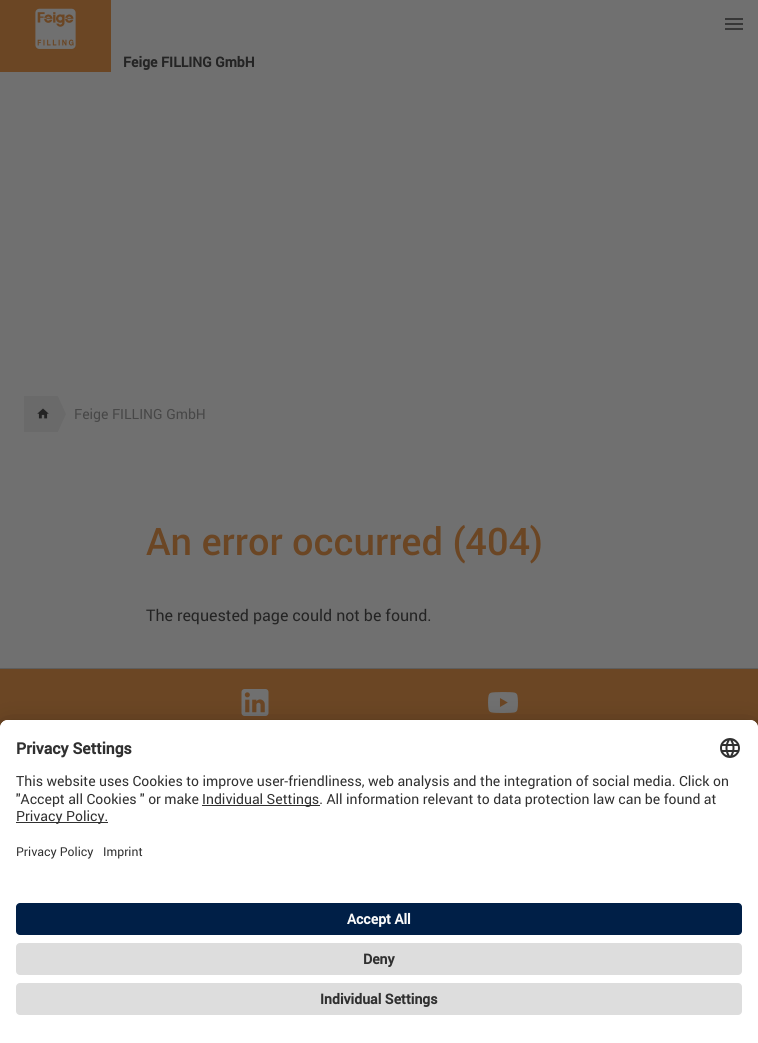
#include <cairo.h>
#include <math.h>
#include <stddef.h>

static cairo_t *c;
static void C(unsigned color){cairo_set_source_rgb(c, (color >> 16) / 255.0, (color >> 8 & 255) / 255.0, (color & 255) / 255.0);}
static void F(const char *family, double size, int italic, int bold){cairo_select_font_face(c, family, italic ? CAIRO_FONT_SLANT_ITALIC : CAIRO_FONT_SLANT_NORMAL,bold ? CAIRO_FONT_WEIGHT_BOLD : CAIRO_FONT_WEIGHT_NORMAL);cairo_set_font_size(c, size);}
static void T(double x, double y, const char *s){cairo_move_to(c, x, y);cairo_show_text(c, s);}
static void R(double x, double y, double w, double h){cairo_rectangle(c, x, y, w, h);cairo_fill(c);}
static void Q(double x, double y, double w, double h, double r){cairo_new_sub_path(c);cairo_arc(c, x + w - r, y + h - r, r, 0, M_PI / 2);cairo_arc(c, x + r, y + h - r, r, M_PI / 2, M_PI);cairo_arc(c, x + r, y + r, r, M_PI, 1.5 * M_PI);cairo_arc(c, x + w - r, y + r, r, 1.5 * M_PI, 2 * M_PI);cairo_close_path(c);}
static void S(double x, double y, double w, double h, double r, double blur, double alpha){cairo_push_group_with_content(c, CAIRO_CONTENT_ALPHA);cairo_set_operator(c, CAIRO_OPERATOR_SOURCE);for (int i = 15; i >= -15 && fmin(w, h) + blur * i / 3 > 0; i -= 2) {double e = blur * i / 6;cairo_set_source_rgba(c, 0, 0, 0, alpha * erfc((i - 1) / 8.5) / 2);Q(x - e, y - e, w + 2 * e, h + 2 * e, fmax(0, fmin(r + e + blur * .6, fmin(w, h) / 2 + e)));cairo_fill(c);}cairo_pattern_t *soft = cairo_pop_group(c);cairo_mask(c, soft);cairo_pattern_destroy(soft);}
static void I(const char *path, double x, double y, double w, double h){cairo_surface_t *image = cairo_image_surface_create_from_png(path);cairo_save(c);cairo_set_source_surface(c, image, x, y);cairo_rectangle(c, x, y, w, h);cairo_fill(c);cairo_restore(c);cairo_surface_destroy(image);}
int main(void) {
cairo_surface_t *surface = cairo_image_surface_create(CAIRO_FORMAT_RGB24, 758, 1043);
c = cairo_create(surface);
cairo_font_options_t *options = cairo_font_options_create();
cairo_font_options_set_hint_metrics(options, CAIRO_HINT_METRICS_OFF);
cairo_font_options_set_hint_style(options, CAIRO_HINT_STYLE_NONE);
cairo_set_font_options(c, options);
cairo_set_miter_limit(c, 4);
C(0x707070);
cairo_paint(c);
C(0x6b4624);
R(0,0,111,72);
I("1.png",35,8,41,41);
I("2.png",725,18,18,12);
F("Roboto",14,0,1);
C(0x242424);
T(123,67,"Feige FILLING GmbH");
C(0x6a6a6a);
R(24,396,32,36);
I("3.png",37,408,12,11);
cairo_save(c);
cairo_rectangle(c,56,396,678,36);
cairo_clip(c);
cairo_new_path(c);
cairo_move_to(c,56,436);
cairo_line_to(c,56,392);
cairo_line_to(c,66,414);
cairo_close_path(c);
cairo_fill(c);
cairo_restore(c);
F("Roboto",14,0,0);
C(0x474747);
T(74,419,"Feige FILLING GmbH");
F("Roboto Medium",38,0,0);
C(0x6b4624);
T(146,555,"An error occurred (404)");
F("Roboto",16,0,0);
C(0x242424);
T(146,621,"The requested page could not be found.");
C(0x6b4624);
R(0,669,758,59);
C(0x5d5d5d);
R(0,668,758,1);
I("4.png",241,689,28,27);
I("5.png",488,692,30,21);
C(0x000000);
S(0,740,758,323,8,14,.3);
S(0,725,758,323,8,13,.22);
C(0xffffff);
cairo_new_path(c);
cairo_move_to(c,8,720);
cairo_line_to(c,750,720);
cairo_curve_to(c,754.5,720,758,723.5,758,728);
cairo_line_to(c,758,1043);
cairo_line_to(c,0,1043);
cairo_line_to(c,0,728);
cairo_curve_to(c,0,723.5,3.5,720,8,720);
cairo_close_path(c);
cairo_fill(c);
cairo_new_path(c);
cairo_move_to(c,8,720);
cairo_line_to(c,750,720);
cairo_curve_to(c,754.5,720,758,723.5,758,728);
cairo_line_to(c,758,891);
cairo_line_to(c,0,891);
cairo_line_to(c,0,728);
cairo_curve_to(c,0,723.5,3.5,720,8,720);
cairo_close_path(c);
cairo_fill(c);
F("Roboto",15.75,0,1);
C(0x303030);
T(16,754,"Privacy Settings");
I("6.png",720,738,20,20);
F("Roboto",14,0,0);
T(16,786,"This website uses Cookies to improve user-friendliness, web analysis and the integration of social media. Click on");
T(16,804,"\"Accept all Cookies \" or make");
R(202,805,118,1);
T(202,804,"Individual Settings. All information relevant to data protection law can be found at");
R(16,822,92,1);
T(16,821,"Privacy Policy.");
F("Roboto",12.25,0,0);
T(16,856,"Privacy Policy");
T(103,856,"Imprint");
C(0x001f47);
Q(16,903,726,32,4);
cairo_fill(c);
F("Roboto",14,0,1);
C(0xfafafa);
T(347,924,"Accept All");
C(0xdddddd);
Q(16,943,726,32,4);
cairo_fill(c);
C(0x303030);
T(363,964,"Deny");
C(0xdddddd);
Q(16,983,726,32,4);
cairo_fill(c);
C(0x303030);
T(320,1004,"Individual Settings");
cairo_surface_write_to_png(surface, "o.png");
cairo_font_options_destroy(options);
cairo_destroy(c);
cairo_surface_destroy(surface);
return 0;
}
